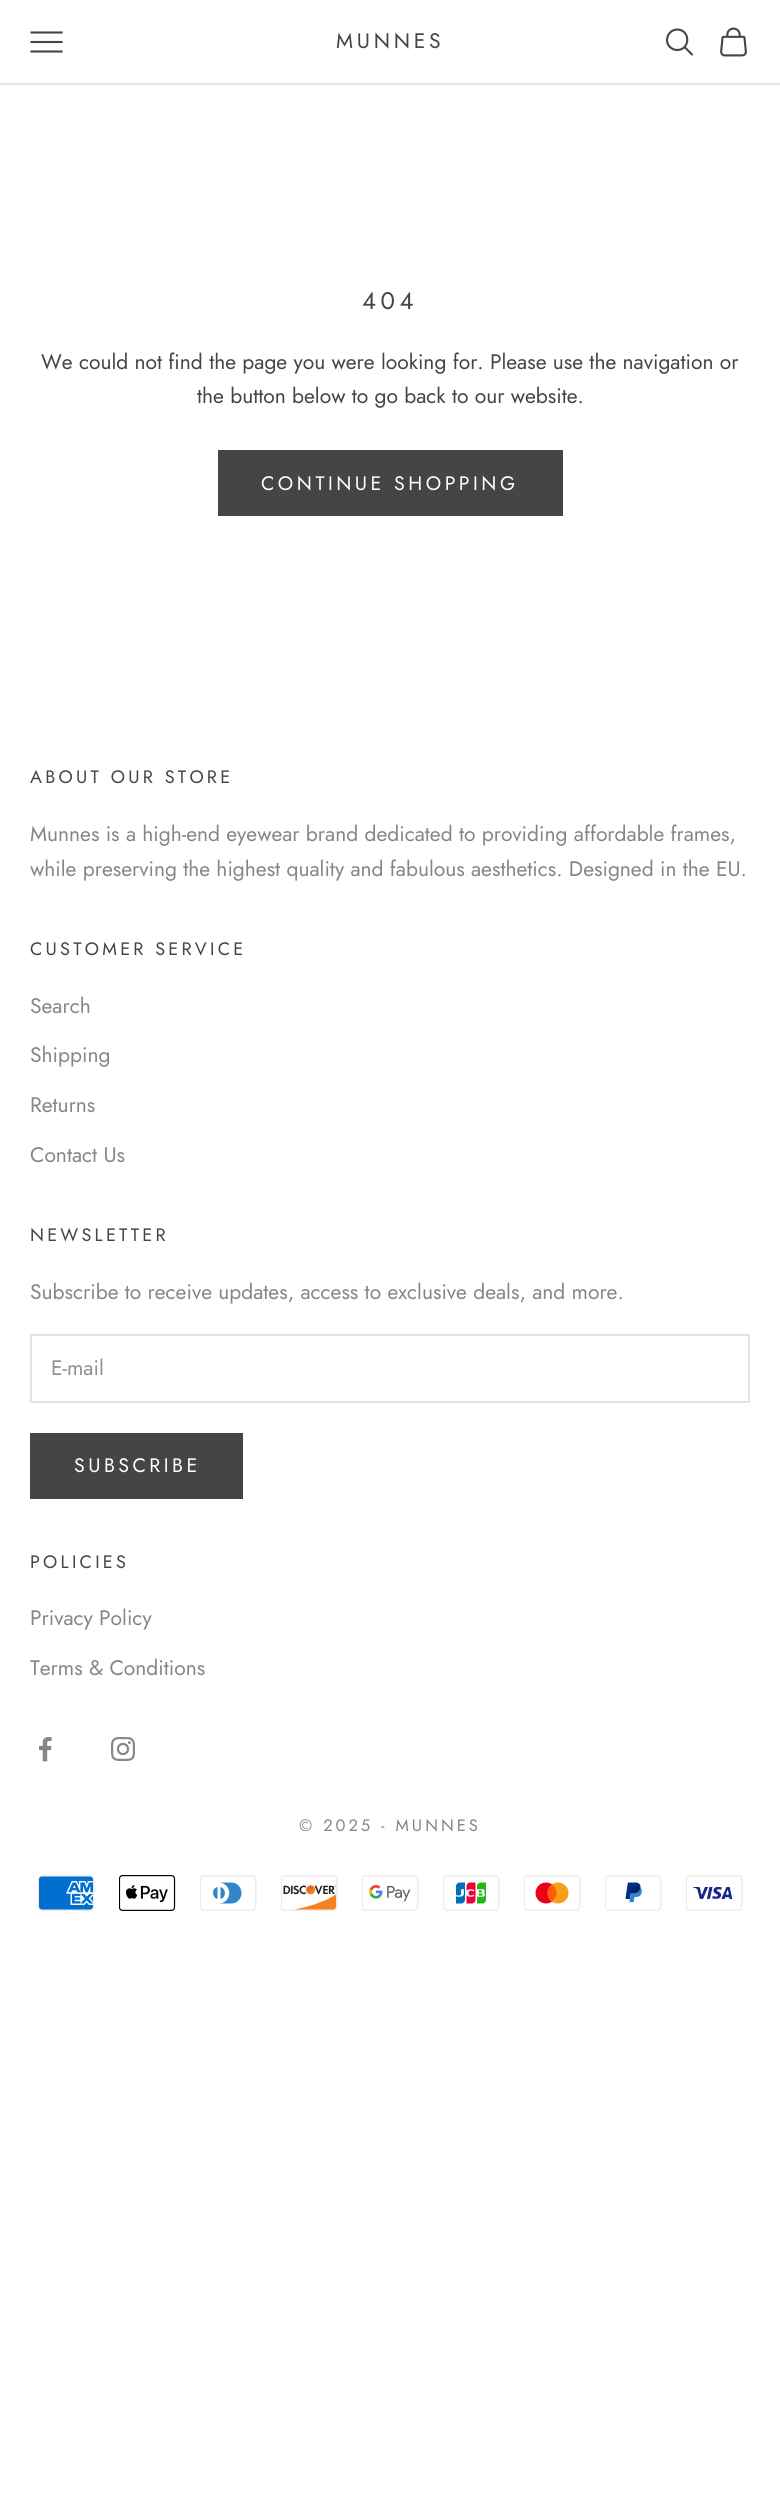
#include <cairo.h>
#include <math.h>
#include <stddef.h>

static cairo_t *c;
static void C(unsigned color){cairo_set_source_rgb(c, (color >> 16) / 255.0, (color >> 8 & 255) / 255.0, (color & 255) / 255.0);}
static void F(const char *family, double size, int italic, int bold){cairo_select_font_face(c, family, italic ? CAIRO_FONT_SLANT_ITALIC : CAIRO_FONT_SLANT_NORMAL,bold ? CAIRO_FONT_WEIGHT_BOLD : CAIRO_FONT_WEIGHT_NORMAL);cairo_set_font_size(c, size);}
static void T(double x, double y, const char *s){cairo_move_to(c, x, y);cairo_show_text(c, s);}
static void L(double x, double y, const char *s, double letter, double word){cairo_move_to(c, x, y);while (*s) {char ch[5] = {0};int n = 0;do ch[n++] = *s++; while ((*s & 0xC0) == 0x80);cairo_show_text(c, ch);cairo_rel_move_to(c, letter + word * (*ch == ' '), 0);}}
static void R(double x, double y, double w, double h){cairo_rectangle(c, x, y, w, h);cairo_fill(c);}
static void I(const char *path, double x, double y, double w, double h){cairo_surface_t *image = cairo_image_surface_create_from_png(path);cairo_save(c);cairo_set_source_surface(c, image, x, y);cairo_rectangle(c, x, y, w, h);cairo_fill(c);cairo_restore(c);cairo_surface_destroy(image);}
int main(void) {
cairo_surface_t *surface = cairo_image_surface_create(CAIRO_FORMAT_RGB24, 780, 2500);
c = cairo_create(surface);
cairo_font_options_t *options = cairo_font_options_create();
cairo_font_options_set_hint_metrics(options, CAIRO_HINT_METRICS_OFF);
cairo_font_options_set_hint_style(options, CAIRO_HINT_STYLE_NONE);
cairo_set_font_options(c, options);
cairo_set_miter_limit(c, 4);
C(0xffffff);
cairo_paint(c);
C(0xe3e3e3);
R(0,83,780,2);
cairo_new_path(c);
cairo_move_to(c,31.5,51.5);
cairo_line_to(c,61.5,51.5);
cairo_move_to(c,31.5,42);
cairo_line_to(c,61.5,42);
cairo_move_to(c,31.5,32.5);
cairo_line_to(c,61.5,32.5);
C(0x454545);
cairo_set_line_width(c,2.1);
cairo_set_line_cap(c,CAIRO_LINE_CAP_SQUARE);
cairo_stroke(c);
F("Jost",21,0,0);
L(336,48,"MUNNES",3.75,0);
cairo_new_path(c);
cairo_move_to(c,677.5,29.5);
cairo_curve_to(c,667,29.5,663,43.5,672,48.5);
cairo_curve_to(c,673.5,49.5,675.5,50,677.5,50);
cairo_curve_to(c,690.5,49.5,690.5,30,677.5,29.5);
cairo_close_path(c);
cairo_set_line_cap(c,CAIRO_LINE_CAP_BUTT);
cairo_stroke(c);
cairo_new_path(c);
cairo_move_to(c,685,47.5);
cairo_line_to(c,692,54.5);
cairo_set_line_cap(c,CAIRO_LINE_CAP_ROUND);
cairo_stroke(c);
I("1.png",720,27,27,30);
F("Jost",24,0,0);
L(362,309,"404",4.5,0);
F("Jost",21,0,0);
T(41,369,"We could not find the page you were looking for. Please use the navigation or");
T(197,403,"the button below to go back to our website.");
cairo_rectangle(c,219,451,343,64);
cairo_fill_preserve(c);
cairo_set_line_width(c,2);
cairo_set_line_cap(c,CAIRO_LINE_CAP_BUTT);
cairo_stroke(c);
F("Jost",19.5,0,0);
C(0xffffff);
L(261,490,"CONTINUE SHOPPING",3.5,0);
F("Jost",18,0,0);
C(0x454545);
L(30,783,"ABOUT OUR STORE",3.25,0);
F("Jost",21,0,0);
C(0x868686);
T(30,841,"Munnes is a high-end eyewear brand dedicated to providing affordable frames,");
T(30,876,"while preserving the highest quality and fabulous aesthetics. Designed in the EU.");
F("Jost",18,0,0);
C(0x454545);
L(30,955,"CUSTOMER SERVICE",3.25,0);
F("Jost",21,0,0);
C(0x868686);
T(30,1013,"Search");
T(30,1062,"Shipping");
T(30,1112,"Returns");
T(30,1162,"Contact Us");
F("Jost",18,0,0);
C(0x454545);
L(30,1241,"NEWSLETTER",3.25,0);
F("Jost",21,0,0);
C(0x868686);
T(30,1299,"Subscribe to receive updates, access to exclusive deals, and more.");
cairo_rectangle(c,31,1335,718,67);
C(0xe3e3e3);
cairo_stroke(c);
C(0x8f8f8f);
T(51,1375,"E-mail");
C(0x454545);
cairo_rectangle(c,31,1434,211,64);
cairo_fill_preserve(c);
cairo_stroke(c);
F("Jost",19.5,0,0);
C(0xffffff);
L(74,1472,"SUBSCRIBE",3.5,0);
F("Jost",18,0,0);
C(0x454545);
L(30,1568,"POLICIES",3.25,0);
F("Jost",21,0,0);
C(0x868686);
T(30,1625,"Privacy Policy");
T(30,1675,"Terms & Conditions");
I("2.png",39,1737,13,25);
I("3.png",111,1737,24,24);
F("Jost",16.5,0,0);
L(299,1831,"© 2025 - MUNNES",3,0);
I("4.png",38,1875,57,36);
I("5.png",119,1875,57,36);
I("6.png",200,1875,57,36);
I("7.png",281,1875,57,36);
I("8.png",362,1875,57,36);
I("9.png",443,1875,57,36);
I("10.png",524,1875,57,36);
I("11.png",605,1875,57,36);
I("12.png",686,1875,57,36);
cairo_surface_write_to_png(surface, "o.png");
cairo_font_options_destroy(options);
cairo_destroy(c);
cairo_surface_destroy(surface);
return 0;
}
